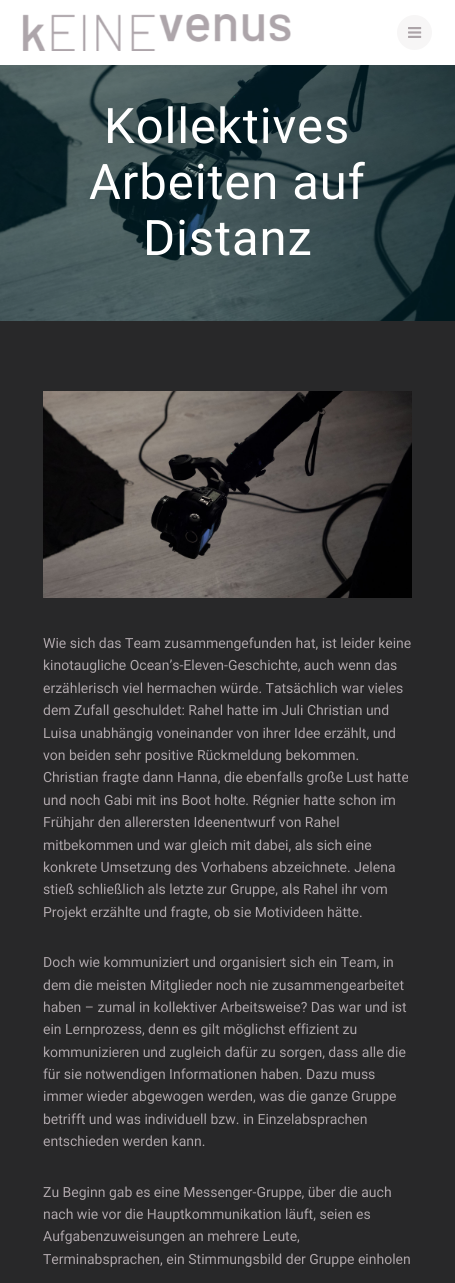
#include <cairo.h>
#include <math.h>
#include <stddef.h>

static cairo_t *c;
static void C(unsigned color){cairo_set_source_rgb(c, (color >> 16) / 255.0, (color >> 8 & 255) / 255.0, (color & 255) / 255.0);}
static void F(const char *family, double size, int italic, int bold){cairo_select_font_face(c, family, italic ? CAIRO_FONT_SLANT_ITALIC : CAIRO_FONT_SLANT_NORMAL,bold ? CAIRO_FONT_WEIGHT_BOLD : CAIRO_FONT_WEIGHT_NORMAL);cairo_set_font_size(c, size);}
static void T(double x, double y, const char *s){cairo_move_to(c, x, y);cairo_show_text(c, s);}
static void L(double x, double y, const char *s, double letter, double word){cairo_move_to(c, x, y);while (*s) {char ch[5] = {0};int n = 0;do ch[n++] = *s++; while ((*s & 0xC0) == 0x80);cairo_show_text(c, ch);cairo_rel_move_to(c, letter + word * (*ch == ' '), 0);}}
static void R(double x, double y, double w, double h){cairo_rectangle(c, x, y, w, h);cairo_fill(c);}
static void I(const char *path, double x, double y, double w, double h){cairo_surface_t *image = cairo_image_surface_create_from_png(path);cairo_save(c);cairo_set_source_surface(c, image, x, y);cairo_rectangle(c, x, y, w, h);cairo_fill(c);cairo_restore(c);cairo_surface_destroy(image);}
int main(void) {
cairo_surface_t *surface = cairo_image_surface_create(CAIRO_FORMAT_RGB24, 455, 1283);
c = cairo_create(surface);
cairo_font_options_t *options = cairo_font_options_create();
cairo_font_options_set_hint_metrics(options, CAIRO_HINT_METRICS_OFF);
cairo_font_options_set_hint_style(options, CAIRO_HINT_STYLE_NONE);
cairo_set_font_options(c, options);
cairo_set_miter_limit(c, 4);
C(0x282829);
cairo_paint(c);
C(0xffffff);
R(0,0,455,65);
I("1.png",22,14,269,37);
C(0xf7f6f6);
cairo_arc(c,414.5,32.5,17.5,0,2 * M_PI);
cairo_fill(c);
I("2.png",408,27,14,11);
I("3.png",0,65,455,256);
F("Roboto",49,0,0);
C(0xffffff);
L(104,143,"Kollektives",.9,0);
L(89,199,"Arbeiten auf",.9,0);
L(143,255,"Distanz",.9,0);
I("4.png",43,391,369,207);
F("Roboto",14,0,0);
C(0xaca4a8);
T(43,648,"Wie sich das Team zusammengefunden hat, ist leider keine");
T(43,670,"kinotaugliche Ocean’s-Eleven-Geschichte, auch wenn das");
T(43,693,"erzählerisch viel hermachen würde. Tatsächlich war vieles");
T(43,715,"dem Zufall geschuldet: Rahel hatte im Juli Christian und");
T(43,738,"Luisa unabhängig voneinander von ihrer Idee erzählt, und");
T(43,760,"von beiden sehr positive Rückmeldung bekommen.");
T(43,782,"Christian fragte dann Hanna, die ebenfalls große Lust hatte");
T(43,805,"und noch Gabi mit ins Boot holte. Régnier hatte schon im");
T(43,827,"Frühjahr den allerersten Ideenentwurf von Rahel");
T(43,850,"mitbekommen und war gleich mit dabei, als sich eine");
T(43,872,"konkrete Umsetzung des Vorhabens abzeichnete. Jelena");
T(43,894,"stieß schließlich als letzte zur Gruppe, als Rahel ihr vom");
T(43,917,"Projekt erzählte und fragte, ob sie Motivideen hätte.");
T(43,967,"Doch wie kommuniziert und organisiert sich ein Team, in");
T(43,990,"dem die meisten Mitglieder noch nie zusammengearbeitet");
T(43,1012,"haben – zumal in kollektiver Arbeitsweise? Das war und ist");
T(43,1034,"ein Lernprozess, denn es gilt möglichst effizient zu");
T(43,1057,"kommunizieren und zugleich dafür zu sorgen, dass alle die");
T(43,1079,"für sie notwendigen Informationen haben. Dazu muss");
T(43,1101,"immer wieder abgewogen werden, was die ganze Gruppe");
T(43,1124,"betrifft und was individuell bzw. in Einzelabsprachen");
T(43,1146,"entschieden werden kann.");
T(43,1197,"Zu Beginn gab es eine Messenger-Gruppe, über die auch");
T(43,1219,"nach wie vor die Hauptkommunikation läuft, seien es");
T(43,1241,"Aufgabenzuweisungen an mehrere Leute,");
T(43,1264,"Terminabsprachen, ein Stimmungsbild der Gruppe einholen");
cairo_surface_write_to_png(surface, "o.png");
cairo_font_options_destroy(options);
cairo_destroy(c);
cairo_surface_destroy(surface);
return 0;
}
